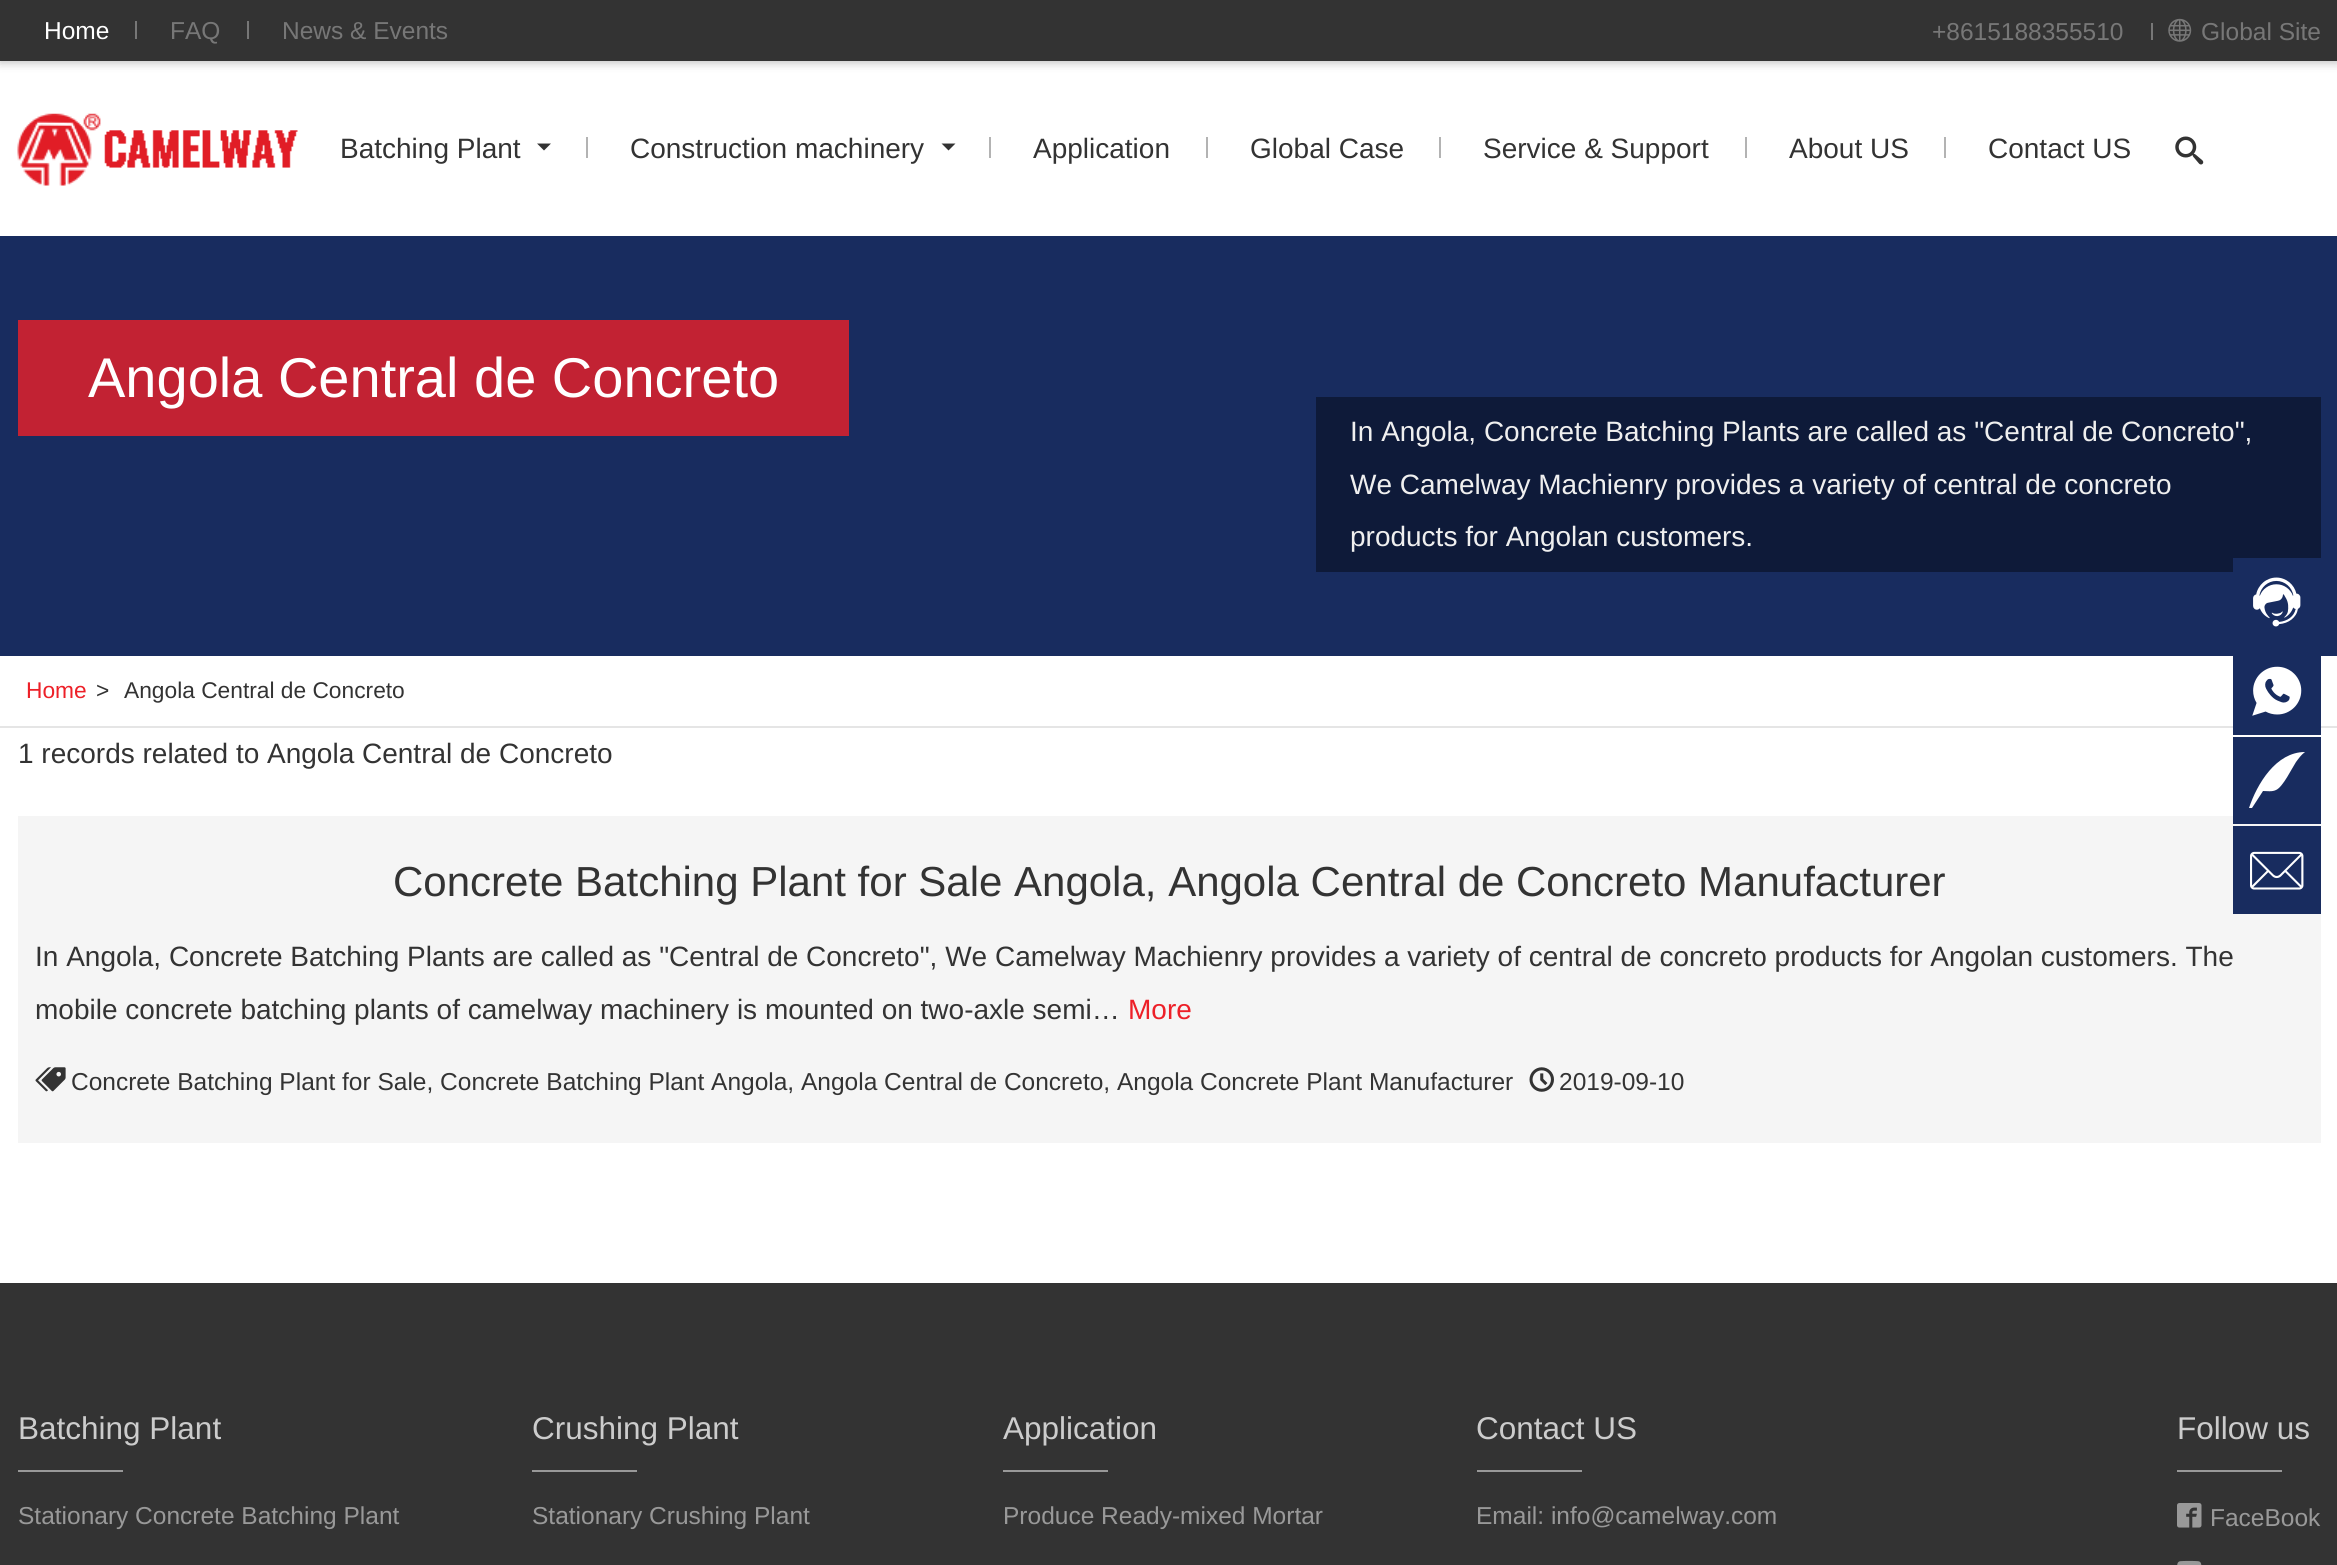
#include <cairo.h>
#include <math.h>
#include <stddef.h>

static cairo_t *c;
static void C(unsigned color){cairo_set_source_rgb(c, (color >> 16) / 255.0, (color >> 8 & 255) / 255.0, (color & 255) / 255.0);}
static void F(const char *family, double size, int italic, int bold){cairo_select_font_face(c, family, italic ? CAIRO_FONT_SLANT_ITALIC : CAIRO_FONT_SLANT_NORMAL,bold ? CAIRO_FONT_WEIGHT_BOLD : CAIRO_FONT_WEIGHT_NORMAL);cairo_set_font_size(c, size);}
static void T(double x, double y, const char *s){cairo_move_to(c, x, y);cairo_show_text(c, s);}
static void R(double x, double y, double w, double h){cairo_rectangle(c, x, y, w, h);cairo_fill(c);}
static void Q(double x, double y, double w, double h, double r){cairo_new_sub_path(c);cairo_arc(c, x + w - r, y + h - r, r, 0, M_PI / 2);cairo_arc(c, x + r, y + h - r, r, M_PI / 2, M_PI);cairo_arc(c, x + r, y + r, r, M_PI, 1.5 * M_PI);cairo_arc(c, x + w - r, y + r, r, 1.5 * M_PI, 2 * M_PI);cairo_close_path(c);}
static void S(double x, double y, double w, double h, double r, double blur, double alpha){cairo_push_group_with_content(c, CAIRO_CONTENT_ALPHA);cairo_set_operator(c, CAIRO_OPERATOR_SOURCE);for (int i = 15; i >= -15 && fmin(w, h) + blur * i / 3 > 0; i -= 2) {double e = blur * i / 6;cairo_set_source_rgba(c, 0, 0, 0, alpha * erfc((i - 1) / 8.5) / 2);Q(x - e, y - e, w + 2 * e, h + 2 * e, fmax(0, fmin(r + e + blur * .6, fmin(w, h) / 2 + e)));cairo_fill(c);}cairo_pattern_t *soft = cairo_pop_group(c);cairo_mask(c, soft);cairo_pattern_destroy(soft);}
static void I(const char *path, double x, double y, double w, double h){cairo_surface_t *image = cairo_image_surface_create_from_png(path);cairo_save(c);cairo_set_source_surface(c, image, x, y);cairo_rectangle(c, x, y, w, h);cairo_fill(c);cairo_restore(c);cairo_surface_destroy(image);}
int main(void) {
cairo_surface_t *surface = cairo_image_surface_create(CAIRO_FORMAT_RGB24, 2337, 1565);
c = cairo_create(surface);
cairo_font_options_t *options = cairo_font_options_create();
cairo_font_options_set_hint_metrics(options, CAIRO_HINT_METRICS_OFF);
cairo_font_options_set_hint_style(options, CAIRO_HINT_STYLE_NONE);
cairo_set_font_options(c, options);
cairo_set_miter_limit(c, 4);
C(0xffffff);
cairo_paint(c);
C(0x333333);
S(0,2,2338,61,0,4.5,.3);
C(0x333333);
R(0,0,2337,61);
F("Liberation Sans",24.5,0,0);
C(0xffffff);
T(44,39,"Home");
C(0x777777);
R(135,21,2,18);
T(170,39,"FAQ");
R(247,21,2,18);
T(282,39,"News & Events");
T(1932,40,"+8615188355510");
R(2151,23,2,17);
I("1.png",2168,18,24,24);
T(2201,40,"Global Site");
I("2.png",17,113,281,73);
F("Liberation Sans",28,0,0);
C(0x333333);
T(340,158,"Batching Plant");
cairo_new_path(c);
cairo_move_to(c,537,143.5);
cairo_line_to(c,551,143.5);
cairo_line_to(c,544,150.5);
cairo_close_path(c);
cairo_fill(c);
C(0xb3b3b3);
R(586,137,2,21);
C(0x333333);
T(630,158,"Construction machinery");
cairo_new_path(c);
cairo_move_to(c,941.5,143.5);
cairo_line_to(c,955.5,143.5);
cairo_line_to(c,948.5,150.5);
cairo_close_path(c);
cairo_fill(c);
C(0xb3b3b3);
R(989,137,2,21);
C(0x333333);
T(1033,158,"Application");
C(0xb3b3b3);
R(1206,137,2,21);
C(0x333333);
T(1250,158,"Global Case");
C(0xb3b3b3);
R(1439,137,2,21);
C(0x333333);
T(1483,158,"Service & Support");
C(0xb3b3b3);
R(1745,137,2,21);
C(0x333333);
T(1789,158,"About US");
C(0xb3b3b3);
R(1944,137,2,21);
C(0x333333);
T(1988,158,"Contact US");
I("3.png",2175,136,29,29);
C(0x182c5f);
R(0,236,2337,420);
C(0xc22233);
R(18,320,831,116);
F("Liberation Sans",56,0,0);
C(0xffffff);
T(88,397,"Angola Central de Concreto");
C(0x0e1a39);
R(1316,397,1005,175);
F("Liberation Sans",28,0,0);
C(0xefefef);
T(1350,441,"In Angola, Concrete Batching Plants are called as \"Central de Concreto\",");
T(1350,494,"We Camelway Machienry provides a variety of central de concreto");
T(1350,546,"products for Angolan customers.");
C(0xe5e5e5);
R(0,726,2337,2);
F("Liberation Sans",22.75,0,0);
C(0xed2028);
T(26,698,"Home");
C(0x333333);
T(96,698,">");
T(124,698,"Angola Central de Concreto");
C(0x182c5f);
R(2233,558,88,14);
I("4.png",2253,577,48,50);
R(2233,656,88,79);
I("5.png",2252,666,50,50);
C(0xf5f5f5);
R(18,816,2303,327);
C(0x182c5f);
R(2233,737,88,87);
C(0xffffff);
cairo_new_path(c);
cairo_move_to(c,2249,808);
cairo_curve_to(c,2257,784,2276,752,2305,752);
cairo_curve_to(c,2301,755,2299,758,2296,762);
cairo_curve_to(c,2292,768,2283,787,2276,790);
cairo_curve_to(c,2272,792,2267,791,2263,791);
cairo_line_to(c,2252,808);
cairo_close_path(c);
cairo_fill(c);
C(0x182c5f);
R(2233,826,88,88);
I("6.png",2250,851,54,39);
F("Liberation Sans",28,0,0);
C(0x333333);
T(18,763,"1 records related to Angola Central de Concreto");
F("Liberation Sans",42,0,0);
T(393,896,"Concrete Batching Plant for Sale Angola, Angola Central de Concreto Manufacturer");
F("Liberation Sans",28,0,0);
T(35,966,"In Angola, Concrete Batching Plants are called as \"Central de Concreto\", We Camelway Machienry provides a variety of central de concreto products for Angolan customers. The");
T(35,1019,"mobile concrete batching plants of camelway machinery is mounted on two-axle semi…");
C(0xed2028);
T(1128,1019,"More");
I("7.png",35,1067,31,25);
F("Liberation Sans",24.5,0,0);
C(0x333333);
T(71,1090,"Concrete Batching Plant for Sale, Concrete Batching Plant Angola, Angola Central de Concreto, Angola Concrete Plant Manufacturer");
I("8.png",1529,1067,25,25);
T(1559,1090,"2019-09-10");
R(0,1283,2337,282);
F("Liberation Sans",31.5,0,0);
C(0xcccccc);
T(18,1439,"Batching Plant");
C(0x999999);
R(18,1470,105,2);
F("Liberation Sans",24.5,0,0);
T(18,1524,"Stationary Concrete Batching Plant");
F("Liberation Sans",31.5,0,0);
C(0xcccccc);
T(532,1439,"Crushing Plant");
C(0x999999);
R(532,1470,105,2);
F("Liberation Sans",24.5,0,0);
T(532,1524,"Stationary Crushing Plant");
F("Liberation Sans",31.5,0,0);
C(0xcccccc);
T(1003,1439,"Application");
C(0x999999);
R(1003,1470,105,2);
F("Liberation Sans",24.5,0,0);
T(1003,1524,"Produce Ready-mixed Mortar");
F("Liberation Sans",31.5,0,0);
C(0xcccccc);
T(1476,1439,"Contact US");
C(0x999999);
R(1477,1470,105,2);
F("Liberation Sans",24.5,0,0);
T(1476,1524,"Email: info@camelway.com");
F("Liberation Sans",31.5,0,0);
C(0xcccccc);
T(2177,1439,"Follow us");
C(0x999999);
R(2177,1470,105,2);
I("9.png",2177,1503,25,25);
F("Liberation Sans",24.5,0,0);
T(2210,1526,"FaceBook");
I("10.png",2177,1560,25,5);
cairo_surface_write_to_png(surface, "o.png");
cairo_font_options_destroy(options);
cairo_destroy(c);
cairo_surface_destroy(surface);
return 0;
}
